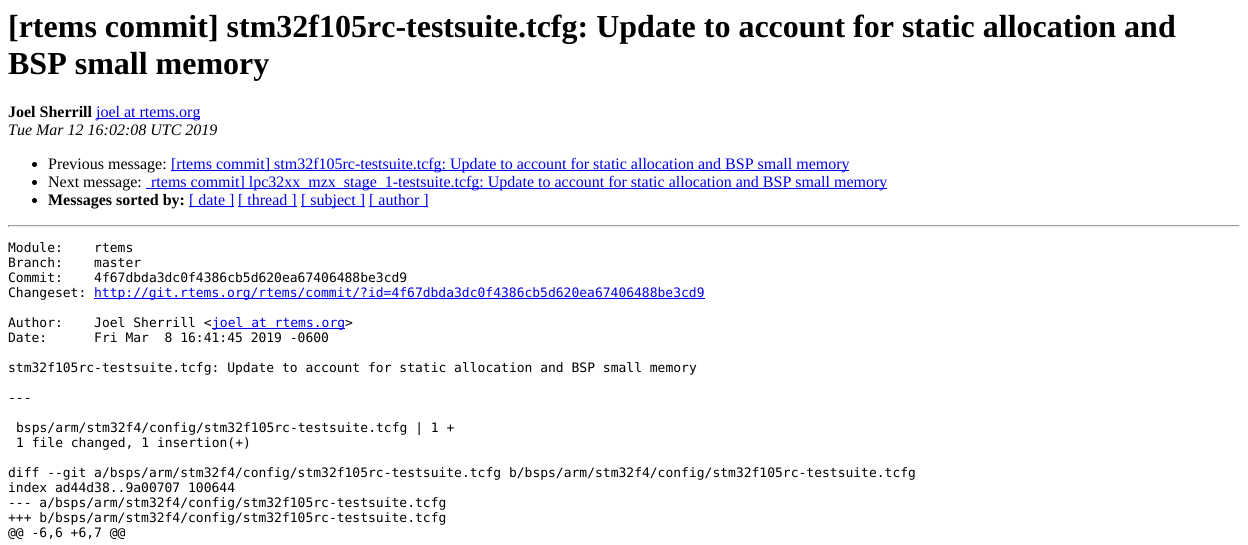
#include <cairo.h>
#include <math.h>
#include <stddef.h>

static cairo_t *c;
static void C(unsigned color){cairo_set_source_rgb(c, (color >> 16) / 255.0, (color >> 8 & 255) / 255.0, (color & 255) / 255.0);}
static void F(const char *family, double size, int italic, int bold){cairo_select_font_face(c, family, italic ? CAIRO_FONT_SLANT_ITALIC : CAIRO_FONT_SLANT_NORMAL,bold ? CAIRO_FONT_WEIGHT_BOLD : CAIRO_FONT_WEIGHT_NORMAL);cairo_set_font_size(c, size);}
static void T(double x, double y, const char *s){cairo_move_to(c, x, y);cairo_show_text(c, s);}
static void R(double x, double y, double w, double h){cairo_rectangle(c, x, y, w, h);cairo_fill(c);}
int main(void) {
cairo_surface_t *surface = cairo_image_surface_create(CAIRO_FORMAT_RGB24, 1248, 545);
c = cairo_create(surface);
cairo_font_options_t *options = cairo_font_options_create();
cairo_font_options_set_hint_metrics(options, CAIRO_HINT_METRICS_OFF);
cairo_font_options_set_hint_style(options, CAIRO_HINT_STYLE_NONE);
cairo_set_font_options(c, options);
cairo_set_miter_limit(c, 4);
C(0xffffff);
cairo_paint(c);
F("Liberation Serif",32,0,1);
C(0x000000);
T(8,37,"[rtems commit] stm32f105rc-testsuite.tcfg: Update to account for static allocation and");
T(8,74,"BSP small memory");
F("Liberation Serif",16,0,1);
T(8,117,"Joel Sherrill");
C(0x0000ee);
R(96,118,104,1);
F("Liberation Serif",16,0,0);
T(96,117,"joel at rtems.org");
F("Liberation Serif",16,1,0);
C(0x000000);
T(8,135,"Tue Mar 12 16:02:08 UTC 2019");
cairo_new_path(c);
cairo_arc(c,34.5,164.5,2.5,0,2 * M_PI);
cairo_fill(c);
F("Liberation Serif",16,0,0);
T(48,169,"Previous message:");
C(0x0000ee);
R(171,170,678,1);
T(171,169,"[rtems commit] stm32f105rc-testsuite.tcfg: Update to account for static allocation and BSP small memory");
C(0x000000);
cairo_new_path(c);
cairo_arc(c,34.5,182.5,2.5,0,2 * M_PI);
cairo_fill(c);
T(48,187,"Next message:");
C(0x0000ee);
R(146,188,741,1);
T(151,187,"rtems commit] lpc32xx_mzx_stage_1-testsuite.tcfg: Update to account for static allocation and BSP small memory");
C(0x000000);
cairo_new_path(c);
cairo_arc(c,34.5,200.5,2.5,0,2 * M_PI);
cairo_fill(c);
F("Liberation Serif",16,0,1);
T(48,205,"Messages sorted by:");
C(0x0000ee);
R(189,206,45,1);
F("Liberation Serif",16,0,0);
T(189,205,"[ date ]");
R(238,206,59,1);
T(238,205,"[ thread ]");
R(301,206,64,1);
T(301,205,"[ subject ]");
R(369,206,59,1);
T(369,205,"[ author ]");
C(0x9f9f9f);
R(8,225,1232,1);
C(0xeeeeee);
R(1239,225,1,2);
R(8,226,1232,1);
C(0x9f9f9f);
R(8,225,1,2);
F("DejaVu Sans Mono",13,0,0);
C(0x000000);
T(8,252,"Module:    rtems");
T(8,267,"Branch:    master");
T(8,282,"Commit:    4f67dbda3dc0f4386cb5d620ea67406488be3cd9");
T(8,297,"Changeset:");
C(0x0000ee);
R(94,298,611,1);
T(94,297,"http://git.rtems.org/rtems/commit/?id=4f67dbda3dc0f4386cb5d620ea67406488be3cd9");
C(0x000000);
T(8,327,"Author:    Joel Sherrill <");
C(0x0000ee);
R(212,328,133,1);
T(212,327,"joel at rtems.org");
C(0x000000);
T(345,327,">");
T(8,342,"Date:      Fri Mar  8 16:41:45 2019 -0600");
T(8,372,"stm32f105rc-testsuite.tcfg: Update to account for static allocation and BSP small memory");
T(8,402,"---");
T(16,432,"bsps/arm/stm32f4/config/stm32f105rc-testsuite.tcfg | 1 +");
T(16,447,"1 file changed, 1 insertion(+)");
T(8,477,"diff --git a/bsps/arm/stm32f4/config/stm32f105rc-testsuite.tcfg b/bsps/arm/stm32f4/config/stm32f105rc-testsuite.tcfg");
T(8,492,"index ad44d38..9a00707 100644");
T(8,507,"--- a/bsps/arm/stm32f4/config/stm32f105rc-testsuite.tcfg");
T(8,522,"+++ b/bsps/arm/stm32f4/config/stm32f105rc-testsuite.tcfg");
T(8,537,"@@ -6,6 +6,7 @@");
cairo_surface_write_to_png(surface, "o.png");
cairo_font_options_destroy(options);
cairo_destroy(c);
cairo_surface_destroy(surface);
return 0;
}
